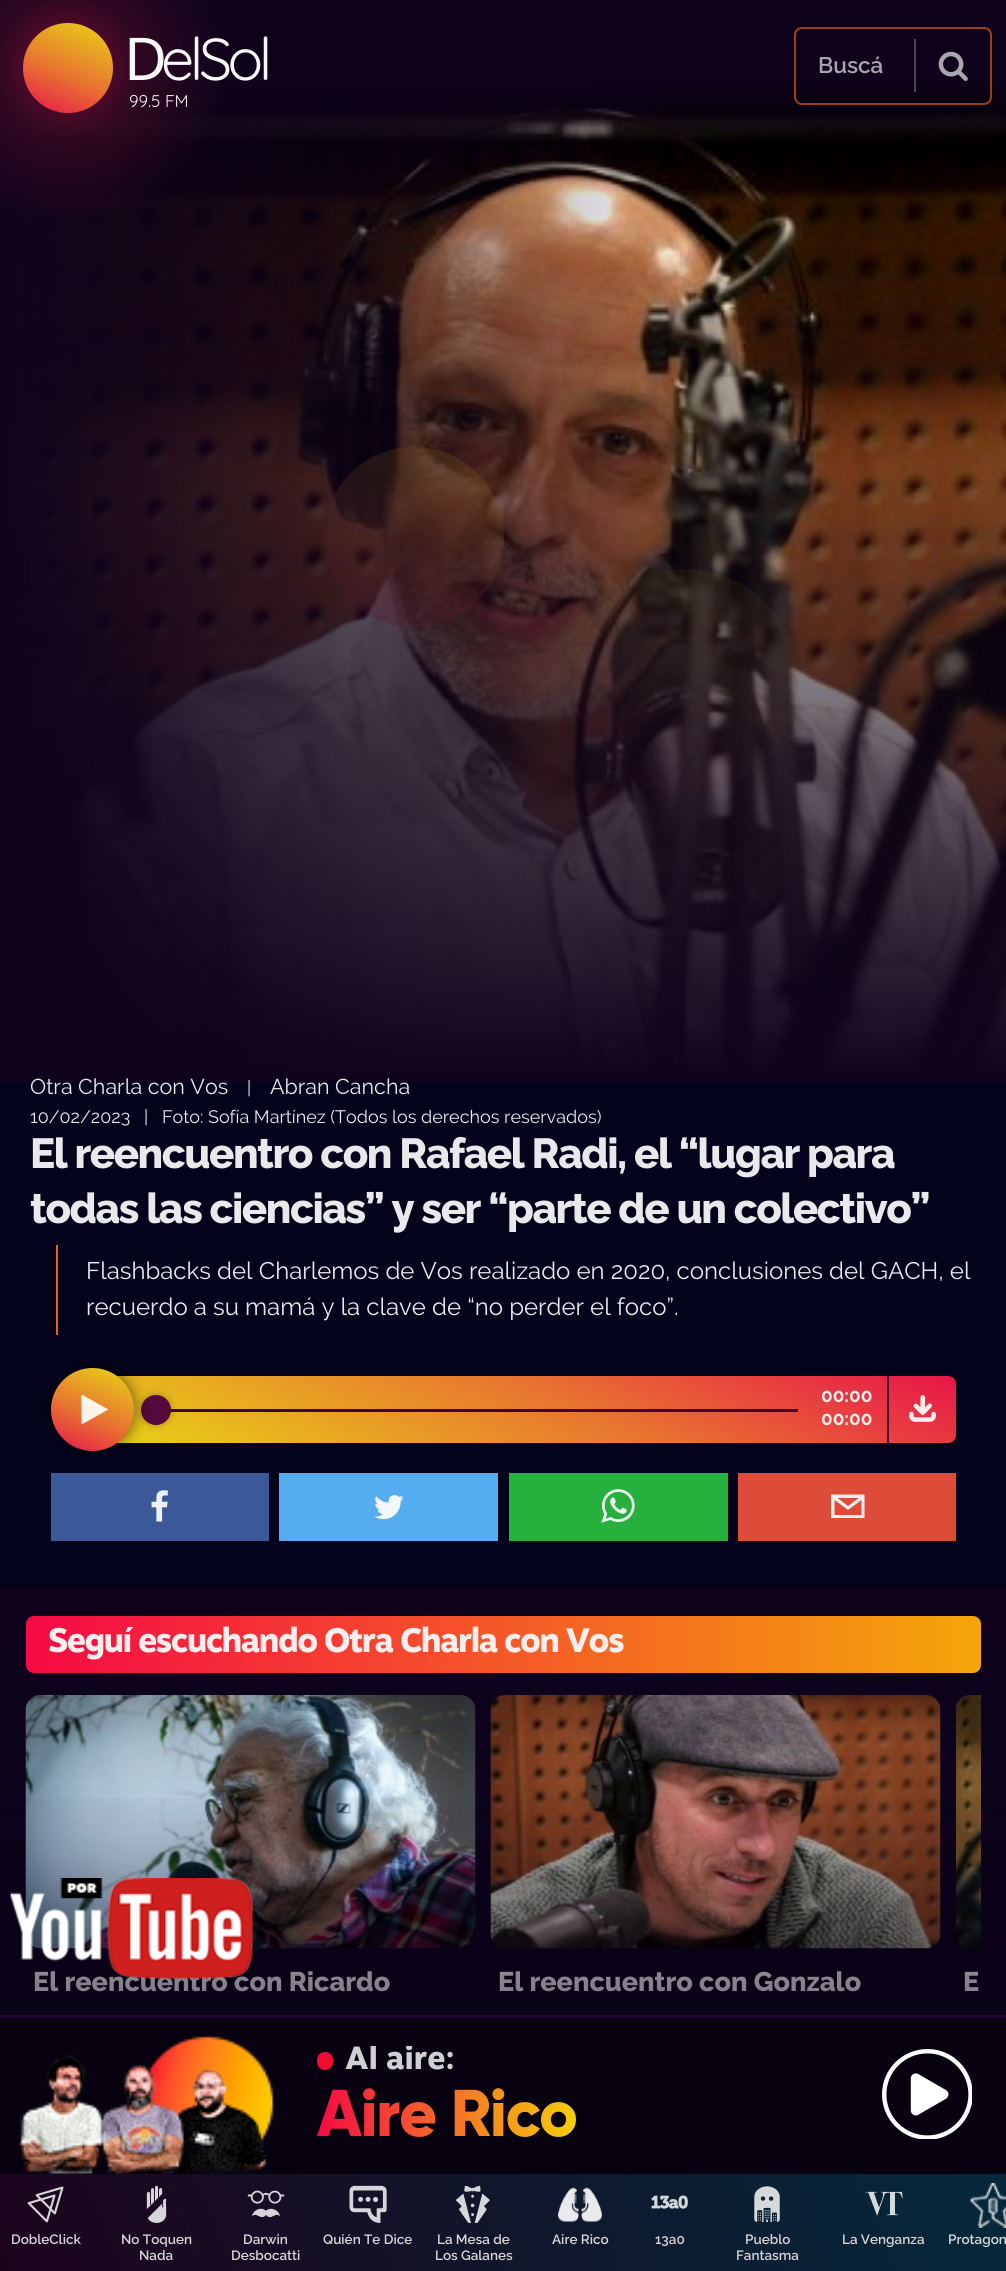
#include <cairo.h>
#include <math.h>
#include <stddef.h>

static cairo_t *c;
static void C(unsigned color){cairo_set_source_rgb(c, (color >> 16) / 255.0, (color >> 8 & 255) / 255.0, (color & 255) / 255.0);}
static void F(const char *family, double size, int italic, int bold){cairo_select_font_face(c, family, italic ? CAIRO_FONT_SLANT_ITALIC : CAIRO_FONT_SLANT_NORMAL,bold ? CAIRO_FONT_WEIGHT_BOLD : CAIRO_FONT_WEIGHT_NORMAL);cairo_set_font_size(c, size);}
static void T(double x, double y, const char *s){cairo_move_to(c, x, y);cairo_show_text(c, s);}
static void L(double x, double y, const char *s, double letter, double word){cairo_move_to(c, x, y);while (*s) {char ch[5] = {0};int n = 0;do ch[n++] = *s++; while ((*s & 0xC0) == 0x80);cairo_show_text(c, ch);cairo_rel_move_to(c, letter + word * (*ch == ' '), 0);}}
static void R(double x, double y, double w, double h){cairo_rectangle(c, x, y, w, h);cairo_fill(c);}
static void Q(double x, double y, double w, double h, double r){cairo_new_sub_path(c);cairo_arc(c, x + w - r, y + h - r, r, 0, M_PI / 2);cairo_arc(c, x + r, y + h - r, r, M_PI / 2, M_PI);cairo_arc(c, x + r, y + r, r, M_PI, 1.5 * M_PI);cairo_arc(c, x + w - r, y + r, r, 1.5 * M_PI, 2 * M_PI);cairo_close_path(c);}
static void S(double x, double y, double w, double h, double r, double blur, double alpha){cairo_push_group_with_content(c, CAIRO_CONTENT_ALPHA);cairo_set_operator(c, CAIRO_OPERATOR_SOURCE);for (int i = 15; i >= -15 && fmin(w, h) + blur * i / 3 > 0; i -= 2) {double e = blur * i / 6;cairo_set_source_rgba(c, 0, 0, 0, alpha * erfc((i - 1) / 8.5) / 2);Q(x - e, y - e, w + 2 * e, h + 2 * e, fmax(0, fmin(r + e + blur * .6, fmin(w, h) / 2 + e)));cairo_fill(c);}cairo_pattern_t *soft = cairo_pop_group(c);cairo_mask(c, soft);cairo_pattern_destroy(soft);}
static void I(const char *path, double x, double y, double w, double h){cairo_surface_t *image = cairo_image_surface_create_from_png(path);cairo_save(c);cairo_set_source_surface(c, image, x, y);cairo_rectangle(c, x, y, w, h);cairo_fill(c);cairo_restore(c);cairo_surface_destroy(image);}
int main(void) {
cairo_surface_t *surface = cairo_image_surface_create(CAIRO_FORMAT_RGB24, 1006, 2271);
c = cairo_create(surface);
cairo_font_options_t *options = cairo_font_options_create();
cairo_font_options_set_hint_metrics(options, CAIRO_HINT_METRICS_OFF);
cairo_font_options_set_hint_style(options, CAIRO_HINT_STYLE_NONE);
cairo_set_font_options(c, options);
cairo_set_miter_limit(c, 4);
cairo_pattern_t *gradient;
C(0x03031c);
cairo_paint(c);
C(0x0f031c);
R(0,0,1006,75);
I("2.png",4,75,1002,1002);
gradient = cairo_pattern_create_linear(0,578,705,578);
cairo_pattern_add_color_stop_rgba(gradient,0,0.059,0.012,0.11,1);
cairo_pattern_add_color_stop_rgba(gradient,1,0.059,0.012,0.11,0);
cairo_set_source(c,gradient);
cairo_pattern_destroy(gradient);
R(0,75,690,1002);
gradient = cairo_pattern_create_linear(503,150,503,75);
cairo_pattern_add_color_stop_rgba(gradient,0,0.059,0.012,0.11,0);
cairo_pattern_add_color_stop_rgba(gradient,1,0.059,0.012,0.11,1);
cairo_set_source(c,gradient);
cairo_pattern_destroy(gradient);
R(63,75,943,68);
gradient = cairo_pattern_create_radial(68,68,0,68,68,158);
cairo_pattern_add_color_stop_rgba(gradient,0,0.91,0.082,0.29,.56);
cairo_pattern_add_color_stop_rgba(gradient,.45,0.478,0.067,0.184,.31);
cairo_pattern_add_color_stop_rgba(gradient,1,0.478,0.067,0.184,0);
cairo_set_source(c,gradient);
cairo_pattern_destroy(gradient);
R(0,0,220,220);
gradient = cairo_pattern_create_linear(44,122,91,13);
cairo_pattern_add_color_stop_rgba(gradient,0,0.91,0.082,0.29,1);
cairo_pattern_add_color_stop_rgba(gradient,.45,0.91,0.463,0.188,1);
cairo_pattern_add_color_stop_rgba(gradient,1,0.91,0.839,0.082,1);
cairo_set_source(c,gradient);
cairo_pattern_destroy(gradient);
cairo_arc(c,68,68,45,0,2 * M_PI);
cairo_fill(c);
F("Noto Sans",59,0,0);
C(0xf9f8f8);
L(124,80,"D",-4.5,0);
F("Quicksand",59,0,0);
L(161,80,"elSol",-4.5,0);
F("Quicksand",17,0,0);
T(129,107,"99.5 FM");
Q(795,28,196,76,7);
cairo_set_source_rgba(c,0.91,0.384,0.082,0.65);
cairo_stroke(c);
F("Raleway SemiBold",22.5,0,0);
C(0xaaa6af);
T(818,73,"Buscá");
cairo_set_source_rgba(c,1,1,1,0.26);
R(914,39,2,53);
I("1.png",938,51,30,30);
gradient = cairo_pattern_create_linear(503,1082,503,227);
cairo_pattern_add_color_stop_rgba(gradient,0,0.059,0.012,0.11,1);
cairo_pattern_add_color_stop_rgba(gradient,1,0.059,0.012,0.11,0);
cairo_set_source(c,gradient);
cairo_pattern_destroy(gradient);
R(0,245,1006,837);
F("Raleway",21.5,0,0);
C(0xe9e8eb);
T(30,1094,"Otra Charla con Vos");
F("Raleway",18,0,0);
T(247,1094,"|");
F("Raleway",21.5,0,0);
T(270,1094,"Abran Cancha");
F("Raleway",18,0,0);
T(30,1123,"10/02/2023   |   Foto: Sofía Martínez (Todos los derechos reservados)");
F("Raleway ExtraBold",42,0,0);
L(30,1168,"El reencuentro con Rafael Radi, el “lugar para",-1.5,0);
L(30,1223,"todas las ciencias” y ser “parte de un colectivo”",-1.5,0);
C(0xe86215);
R(56,1245,2,90);
F("Raleway",24,0,0);
C(0xe9e8eb);
T(86,1279,"Flashbacks del Charlemos de Vos realizado en 2020, conclusiones del GACH, el");
T(86,1315,"recuerdo a su mamá y la clave de “no perder el foco”.");
gradient = cairo_pattern_create_linear(444,1594,600,1225);
cairo_pattern_add_color_stop_rgba(gradient,0,0.91,0.839,0.082,1);
cairo_pattern_add_color_stop_rgba(gradient,.55,0.91,0.463,0.188,1);
cairo_pattern_add_color_stop_rgba(gradient,1,0.91,0.082,0.29,1);
cairo_set_source(c,gradient);
cairo_pattern_destroy(gradient);
Q(89,1376,867,67,8);
cairo_fill(c);
C(0x3b053b);
R(170,1409,628,3);
C(0x000000);
S(141,1395,30,30,15,4,.26);
C(0x54083b);
cairo_arc(c,156,1410,15,0,2 * M_PI);
cairo_fill(c);
C(0x3b5999);
R(51,1473,218,68);
C(0x000000);
S(51,1368,83,83,41.5,7.5,.56);
gradient = cairo_pattern_create_linear(71,1459,113,1359);
cairo_pattern_add_color_stop_rgba(gradient,0,0.91,0.082,0.29,1);
cairo_pattern_add_color_stop_rgba(gradient,.45,0.91,0.463,0.188,1);
cairo_pattern_add_color_stop_rgba(gradient,1,0.91,0.839,0.082,1);
cairo_set_source(c,gradient);
cairo_pattern_destroy(gradient);
cairo_arc(c,92.5,1409.5,41.5,0,2 * M_PI);
cairo_fill(c);
cairo_set_source_rgba(c,1,1,1,0.91);
cairo_new_path(c);
cairo_move_to(c,107.5,1410);
cairo_curve_to(c,108,1410,108.5,1409.5,107.5,1409);
cairo_line_to(c,82.5,1395);
cairo_line_to(c,82,1395);
cairo_line_to(c,81.5,1396);
cairo_line_to(c,81.5,1423.5);
cairo_line_to(c,82,1424);
cairo_line_to(c,82.5,1424);
cairo_close_path(c);
cairo_fill(c);
F("Raleway",19,0,1);
C(0xfeeded);
T(821,1402,"00:00");
T(821,1425,"00:00");
C(0x3b053b);
R(887,1376,2,67);
I("3.png",909,1395,27,27);
I("4.png",151,1490,17,32);
C(0x55acee);
R(279,1473,219,68);
I("5.png",374,1495,30,25);
C(0x26b03d);
R(509,1473,219,68);
I("6.png",601,1489,34,34);
C(0xdd4b39);
R(738,1473,218,68);
C(0xfcefed);
cairo_new_path(c);
cairo_move_to(c,831,1494.5);
cairo_line_to(c,864.5,1494.5);
cairo_line_to(c,864.5,1518);
cairo_line_to(c,831,1518);
cairo_close_path(c);
cairo_move_to(c,848,1506);
cairo_line_to(c,858.5,1498);
cairo_line_to(c,837.5,1498);
cairo_close_path(c);
cairo_move_to(c,834.5,1515);
cairo_line_to(c,861.5,1515);
cairo_line_to(c,861.5,1500);
cairo_line_to(c,848,1510);
cairo_line_to(c,834.5,1500);
cairo_close_path(c);
cairo_fill(c);
gradient = cairo_pattern_create_linear(503,1586,503,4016);
cairo_pattern_add_color_stop_rgba(gradient,0,0.059,0.012,0.11,1);
cairo_pattern_add_color_stop_rgba(gradient,.5,0.012,0.012,0.11,1);
cairo_pattern_add_color_stop_rgba(gradient,1,0.012,0.012,0.11,1);
cairo_set_source(c,gradient);
cairo_pattern_destroy(gradient);
R(0,1586,1006,429);
gradient = cairo_pattern_create_linear(26,1644,981,1644);
cairo_pattern_add_color_stop_rgba(gradient,0,0.961,0.039,0.271,1);
cairo_pattern_add_color_stop_rgba(gradient,1,0.961,0.651,0.039,1);
cairo_set_source(c,gradient);
cairo_pattern_destroy(gradient);
Q(26,1616,955,57,8);
cairo_fill(c);
F("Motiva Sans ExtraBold",33.75,0,0);
C(0xfeeded);
L(48,1652,"Seguí escuchando Otra Charla con Vos",-1.5,0);
I("7.png",25,1695,451,254);
gradient = cairo_pattern_create_linear(250,1695,251,2205);
cairo_pattern_add_color_stop_rgba(gradient,0,0,0,0,.04);
cairo_pattern_add_color_stop_rgba(gradient,1,0,0,0,0);
cairo_set_source(c,gradient);
cairo_pattern_destroy(gradient);
R(26,1695,449,235);
F("Raleway ExtraBold",27,0,0);
C(0xe9e8eb);
T(33,1991,"El reencuentro con Ricardo");
I("8.png",490,1695,451,254);
gradient = cairo_pattern_create_linear(716,1695,716,2205);
cairo_pattern_add_color_stop_rgba(gradient,0,0,0,0,.04);
cairo_pattern_add_color_stop_rgba(gradient,1,0,0,0,0);
cairo_set_source(c,gradient);
cairo_pattern_destroy(gradient);
R(491,1695,449,235);
C(0xe9e8eb);
T(498,1991,"El reencuentro con Gonzalo");
I("9.png",956,1695,25,254);
gradient = cairo_pattern_create_linear(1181,1695,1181,2205);
cairo_pattern_add_color_stop_rgba(gradient,0,0,0,0,.04);
cairo_pattern_add_color_stop_rgba(gradient,1,0,0,0,0);
cairo_set_source(c,gradient);
cairo_pattern_destroy(gradient);
R(956,1695,25,180);
C(0xe9e8eb);
T(963,1991,"E");
C(0x08010f);
R(0,2017,1006,157);
gradient = cairo_pattern_create_linear(503,1788,503,2015);
cairo_pattern_add_color_stop_rgba(gradient,0,0.031,0.004,0.059,0);
cairo_pattern_add_color_stop_rgba(gradient,1,0.031,0.004,0.059,.51);
cairo_set_source(c,gradient);
cairo_pattern_destroy(gradient);
R(0,1798,1006,217);
I("10.png",10,1878,243,101);
C(0x28044f);
R(0,2015,1006,2);
I("11.png",18,2036,256,138);
C(0xf50a31);
Q(317,2052,16,18,8);
cairo_fill(c);
cairo_save(c);
cairo_rectangle(c,317,2046,531,32);
cairo_clip(c);
F("Motiva Sans ExtraBold",32,0,0);
C(0xd0cfd1);
T(345,2069,"Al aire:");
cairo_restore(c);
F("Gilroy ExtraBold",66,0,0);
gradient = cairo_pattern_create_linear(317,2113,575,2113);
cairo_pattern_add_color_stop_rgba(gradient,0,0.961,0.039,0.271,1);
cairo_pattern_add_color_stop_rgba(gradient,1,0.961,0.808,0.039,1);
cairo_set_source(c,gradient);
cairo_pattern_destroy(gradient);
L(317,2136,"Aire Rico",-1.5,0);
I("12.png",882,2049,90,90);
gradient = cairo_pattern_create_linear(59,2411,947,2034);
cairo_pattern_add_color_stop_rgba(gradient,0,0.11,0.012,0.11,1);
cairo_pattern_add_color_stop_rgba(gradient,1,0.02,0.161,0.231,1);
cairo_set_source(c,gradient);
cairo_pattern_destroy(gradient);
R(0,2174,1006,97);
I("13.png",27,2186,37,37);
F("Raleway SemiBold",13.5,0,0);
C(0xd7d4d9);
T(11,2244,"DobleClick");
I("14.png",146,2185,21,38);
T(121,2244,"No Toquen");
T(139,2260,"Nada");
I("15.png",247,2190,38,28);
T(243,2244,"Darwin");
T(231,2260,"Desbocatti");
I("16.png",349,2185,38,38);
T(323,2244,"Quién Te Dice");
I("17.png",455,2185,35,38);
T(437,2244,"La Mesa de");
T(435,2260,"Los Galanes");
I("18.png",558,2187,45,35);
T(552,2244,"Aire Rico");
I("19.png",651,2195,37,14);
T(655,2244,"13a0");
I("20.png",754,2186,26,37);
T(745,2244,"Pueblo");
T(736,2260,"Fantasma");
I("21.png",865,2191,38,25);
T(842,2244,"La Venganza");
I("22.png",970,2183,36,45);
C(0xd5dadd);
T(948,2244,"Protagon");
cairo_surface_write_to_png(surface, "o.png");
cairo_font_options_destroy(options);
cairo_destroy(c);
cairo_surface_destroy(surface);
return 0;
}
